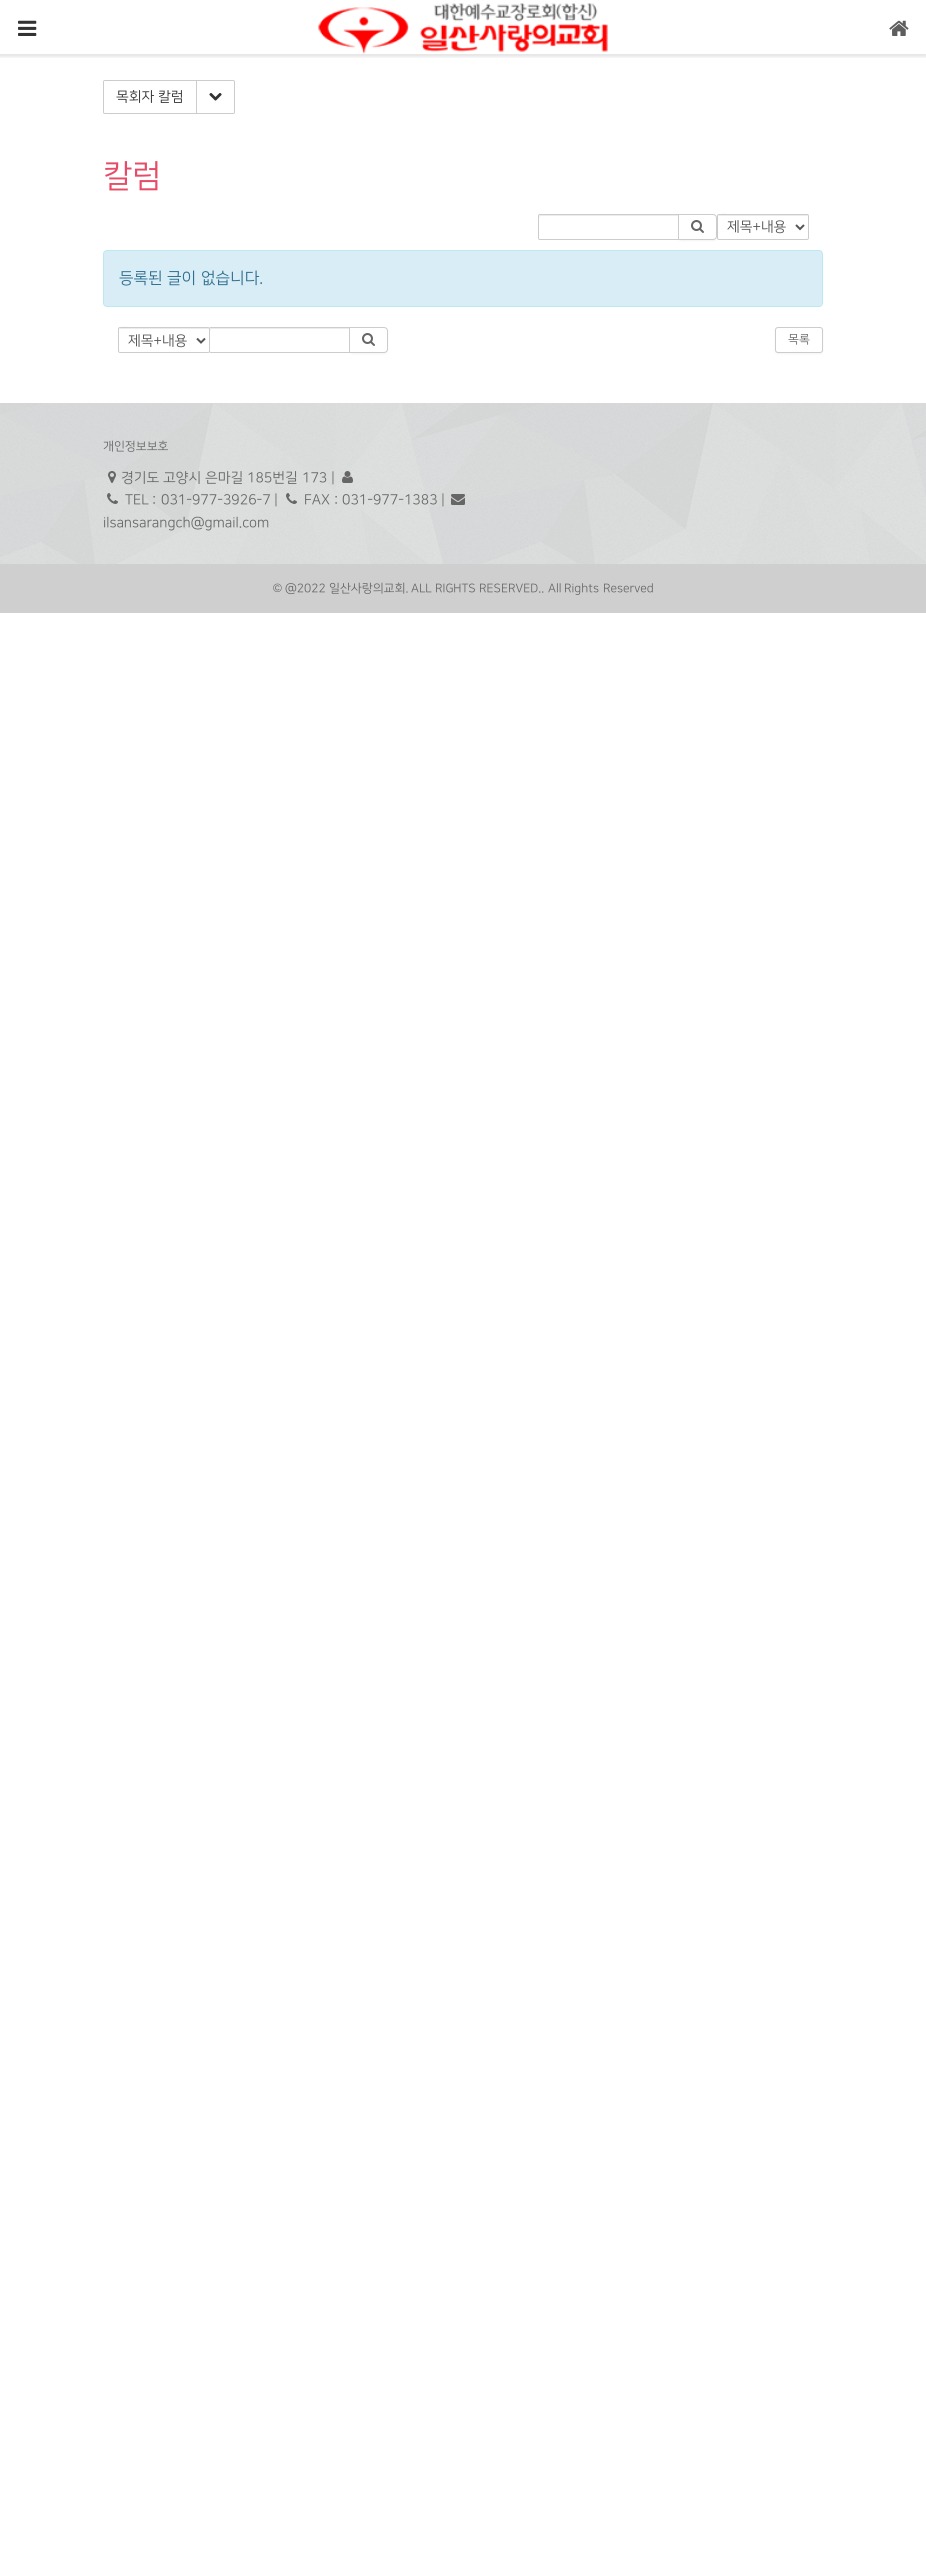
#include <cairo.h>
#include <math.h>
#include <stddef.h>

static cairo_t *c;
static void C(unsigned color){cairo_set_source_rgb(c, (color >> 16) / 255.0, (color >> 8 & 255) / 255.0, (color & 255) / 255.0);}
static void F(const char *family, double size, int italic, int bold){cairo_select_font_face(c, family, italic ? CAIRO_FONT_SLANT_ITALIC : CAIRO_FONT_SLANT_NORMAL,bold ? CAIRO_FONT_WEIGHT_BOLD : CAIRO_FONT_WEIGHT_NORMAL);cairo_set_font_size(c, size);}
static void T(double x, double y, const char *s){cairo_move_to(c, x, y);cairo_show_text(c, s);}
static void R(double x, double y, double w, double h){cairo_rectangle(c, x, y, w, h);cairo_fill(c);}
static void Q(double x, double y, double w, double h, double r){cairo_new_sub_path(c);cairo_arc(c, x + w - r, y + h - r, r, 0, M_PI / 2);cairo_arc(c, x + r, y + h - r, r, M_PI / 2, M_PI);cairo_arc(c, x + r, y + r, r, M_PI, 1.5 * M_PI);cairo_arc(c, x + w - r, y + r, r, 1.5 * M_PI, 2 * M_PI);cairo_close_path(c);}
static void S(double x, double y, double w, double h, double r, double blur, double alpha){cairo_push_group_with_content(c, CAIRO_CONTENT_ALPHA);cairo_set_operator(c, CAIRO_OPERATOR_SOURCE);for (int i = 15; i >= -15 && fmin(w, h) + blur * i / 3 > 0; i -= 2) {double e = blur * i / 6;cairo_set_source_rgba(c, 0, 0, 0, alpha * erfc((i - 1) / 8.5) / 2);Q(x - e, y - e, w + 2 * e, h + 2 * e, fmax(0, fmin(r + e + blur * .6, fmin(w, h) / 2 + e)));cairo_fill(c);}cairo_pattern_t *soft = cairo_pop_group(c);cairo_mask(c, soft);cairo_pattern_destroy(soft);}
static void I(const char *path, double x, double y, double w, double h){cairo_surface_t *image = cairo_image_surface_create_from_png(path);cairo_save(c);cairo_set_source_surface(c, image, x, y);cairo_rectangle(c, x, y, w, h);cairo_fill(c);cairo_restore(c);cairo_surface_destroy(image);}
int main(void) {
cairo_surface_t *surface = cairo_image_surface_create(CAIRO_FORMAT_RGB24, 926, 2551);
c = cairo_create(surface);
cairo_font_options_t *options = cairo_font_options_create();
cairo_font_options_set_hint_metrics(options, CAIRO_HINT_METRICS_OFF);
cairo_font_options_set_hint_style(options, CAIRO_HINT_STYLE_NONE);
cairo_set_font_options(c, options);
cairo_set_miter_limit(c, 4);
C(0xffffff);
cairo_paint(c);
cairo_save(c);
cairo_rectangle(c,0,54,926,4);
cairo_clip(c);
C(0x000000);
S(-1,1,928,56,0,1.5,.1);
cairo_restore(c);
I("1.png",18,20,19,16);
I("2.png",318,3,290,51);
I("3.png",889,20,20,16);
cairo_new_path(c);
cairo_move_to(c,105,80.5);
cairo_line_to(c,196.5,80.5);
cairo_line_to(c,196.5,113.5);
cairo_line_to(c,105,113.5);
cairo_curve_to(c,104,113.5,103.5,113,103.5,112);
cairo_line_to(c,103.5,82);
cairo_curve_to(c,103.5,81,104,80.5,105,80.5);
cairo_close_path(c);
C(0xcccccc);
cairo_set_line_width(c,1);
cairo_stroke(c);
F("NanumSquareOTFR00",14,0,0);
C(0x333333);
T(116,101,"목회자");
T(158,101,"칼럼");
C(0xffffff);
cairo_new_path(c);
cairo_move_to(c,196.5,80.5);
cairo_line_to(c,233,80.5);
cairo_curve_to(c,234,80.5,234.5,81,234.5,82);
cairo_line_to(c,234.5,112);
cairo_curve_to(c,234.5,113,234,113.5,233,113.5);
cairo_line_to(c,196.5,113.5);
cairo_close_path(c);
cairo_fill_preserve(c);
C(0xcccccc);
cairo_stroke(c);
I("4.png",209,93,13,8);
F("NanumSquareOTFR00",32,0,0);
C(0xe64c66);
T(103,186,"칼럼");
C(0xececec);
cairo_new_path(c);
cairo_move_to(c,719,216);
cairo_line_to(c,807,216);
cairo_curve_to(c,808,216,808,216,808,217);
cairo_curve_to(c,808,216,808,215,807,215);
cairo_line_to(c,734,215);
cairo_curve_to(c,732,215,718,211,718,217);
cairo_curve_to(c,718,216,718,216,719,216);
cairo_close_path(c);
cairo_fill(c);
Q(717.5,214.5,91,25,1.5);
C(0xcccccc);
cairo_stroke(c);
C(0x000000);
S(678,215,39,26,4,1,.05);
C(0xffffff);
cairo_new_path(c);
cairo_move_to(c,678.5,214.5);
cairo_line_to(c,713,214.5);
cairo_curve_to(c,715,214.5,716.5,216,716.5,218);
cairo_line_to(c,716.5,236);
cairo_curve_to(c,716.5,238,715,239.5,713,239.5);
cairo_line_to(c,678.5,239.5);
cairo_close_path(c);
cairo_fill_preserve(c);
C(0xcccccc);
cairo_stroke(c);
C(0xffffff);
cairo_new_path(c);
cairo_move_to(c,540,214);
cairo_line_to(c,679,214);
cairo_line_to(c,679,240);
cairo_line_to(c,540,240);
cairo_curve_to(c,539,240,538,239,538,238);
cairo_line_to(c,538,216);
cairo_curve_to(c,538,215,539,214,540,214);
cairo_close_path(c);
cairo_fill(c);
C(0xececec);
cairo_new_path(c);
cairo_move_to(c,540,216);
cairo_line_to(c,678,216);
cairo_line_to(c,678,215);
cairo_line_to(c,540,215);
cairo_curve_to(c,538,216,539,218,539,218);
cairo_close_path(c);
cairo_fill(c);
cairo_new_path(c);
cairo_move_to(c,540,214.5);
cairo_line_to(c,678.5,214.5);
cairo_line_to(c,678.5,239.5);
cairo_line_to(c,540,239.5);
cairo_curve_to(c,539,239.5,538.5,239,538.5,238);
cairo_line_to(c,538.5,216);
cairo_curve_to(c,538.5,215,539,214.5,540,214.5);
cairo_close_path(c);
C(0xcccccc);
cairo_stroke(c);
I("5.png",691,220,13,13);
cairo_new_path(c);
cairo_move_to(c,796,225);
cairo_line_to(c,800,229);
cairo_line_to(c,804,225);
C(0x555555);
cairo_set_line_width(c,2);
cairo_stroke(c);
F("NanumSquareOTFR00",14,0,0);
T(727,231,"제목+내용");
C(0xd9edf7);
Q(103.5,250.5,719,56,3.5);
cairo_fill_preserve(c);
C(0xbce8f1);
cairo_set_line_width(c,1);
cairo_stroke(c);
F("NanumSquareOTFR00",16,0,0);
C(0x31708f);
T(119,283,"등록된");
T(167,283,"글이");
T(201,283,"없습니다.");
C(0xececec);
cairo_new_path(c);
cairo_move_to(c,120,329);
cairo_line_to(c,208,329);
cairo_curve_to(c,209,329,209,329,209,330);
cairo_curve_to(c,209,329,209,328,208,328);
cairo_line_to(c,135,328);
cairo_curve_to(c,133,328,119,324,119,330);
cairo_curve_to(c,119,329,119,329,120,329);
cairo_close_path(c);
cairo_fill(c);
Q(118.5,327.5,91,25,1.5);
C(0xcccccc);
cairo_stroke(c);
cairo_new_path(c);
cairo_move_to(c,197,338.5);
cairo_line_to(c,201,342.5);
cairo_line_to(c,205,338.5);
C(0x555555);
cairo_set_line_width(c,2);
cairo_stroke(c);
F("NanumSquareOTFR00",14,0,0);
T(128,345,"제목+내용");
C(0x000000);
S(349,328,39,26,4,1,.05);
C(0xffffff);
cairo_new_path(c);
cairo_move_to(c,349.5,327.5);
cairo_line_to(c,384,327.5);
cairo_curve_to(c,386,327.5,387.5,329,387.5,331);
cairo_line_to(c,387.5,349);
cairo_curve_to(c,387.5,351,386,352.5,384,352.5);
cairo_line_to(c,349.5,352.5);
cairo_close_path(c);
cairo_fill_preserve(c);
C(0xcccccc);
cairo_set_line_width(c,1);
cairo_stroke(c);
C(0xffffff);
cairo_new_path(c);
cairo_move_to(c,211,327);
cairo_line_to(c,350,327);
cairo_line_to(c,350,353);
cairo_line_to(c,211,353);
cairo_curve_to(c,210,353,209,352,209,351);
cairo_line_to(c,209,329);
cairo_curve_to(c,209,328,210,327,211,327);
cairo_close_path(c);
cairo_fill(c);
C(0xececec);
cairo_new_path(c);
cairo_move_to(c,211,329);
cairo_line_to(c,349,329);
cairo_line_to(c,349,328);
cairo_line_to(c,211,328);
cairo_curve_to(c,209,329,210,331,210,331);
cairo_close_path(c);
cairo_fill(c);
cairo_new_path(c);
cairo_move_to(c,211,327.5);
cairo_line_to(c,349.5,327.5);
cairo_line_to(c,349.5,352.5);
cairo_line_to(c,211,352.5);
cairo_curve_to(c,210,352.5,209.5,352,209.5,351);
cairo_line_to(c,209.5,329);
cairo_curve_to(c,209.5,328,210,327.5,211,327.5);
cairo_close_path(c);
C(0xcccccc);
cairo_stroke(c);
I("5.png",362,333,13,13);
C(0x000000);
S(775,328,48,26,3,1,.05);
C(0xffffff);
Q(775.5,327.5,47,25,2.5);
cairo_fill_preserve(c);
C(0xcccccc);
cairo_stroke(c);
F("NanumSquareOTFR00",12,0,0);
C(0x666666);
T(788,343,"목록");
I("6.png",0,403,926,161);
T(103,450,"개인정보보호");
I("7.png",108,471,8,12);
F("NanumSquareOTFR00",14,0,0);
T(121,482,"경기도");
T(163,482,"고양시");
T(205,482,"은마길");
T(247,482,"185번길");
T(302,482,"173");
T(331,482,"|");
I("8.png",342,471,11,12);
I("9.png",107,493,11,11);
T(125,504,"TEL");
T(152,504,":");
T(161,504,"031-977-3926-7");
T(274,504,"|");
I("10.png",286,493,11,11);
T(304,504,"FAX");
T(334,504,":");
T(342,504,"031-977-1383");
T(441,504,"|");
I("11.png",451,494,14,11);
T(103,527,"ilsansarangch@gmail.com");
C(0xcfcfcf);
R(0,564,926,49);
F("Liberation Sans",12,0,0);
C(0x666666);
T(273,592,"©");
F("NanumSquareOTFR00",12,0,0);
T(285,592,"@2022");
T(329,592,"일산사랑의교회.");
T(411,592,"ALL");
T(435,592,"RIGHTS");
T(479,592,"RESERVED..");
T(548,592,"All");
T(564,592,"Rights");
T(603,592,"Reserved");
cairo_surface_write_to_png(surface, "o.png");
cairo_font_options_destroy(options);
cairo_destroy(c);
cairo_surface_destroy(surface);
return 0;
}
